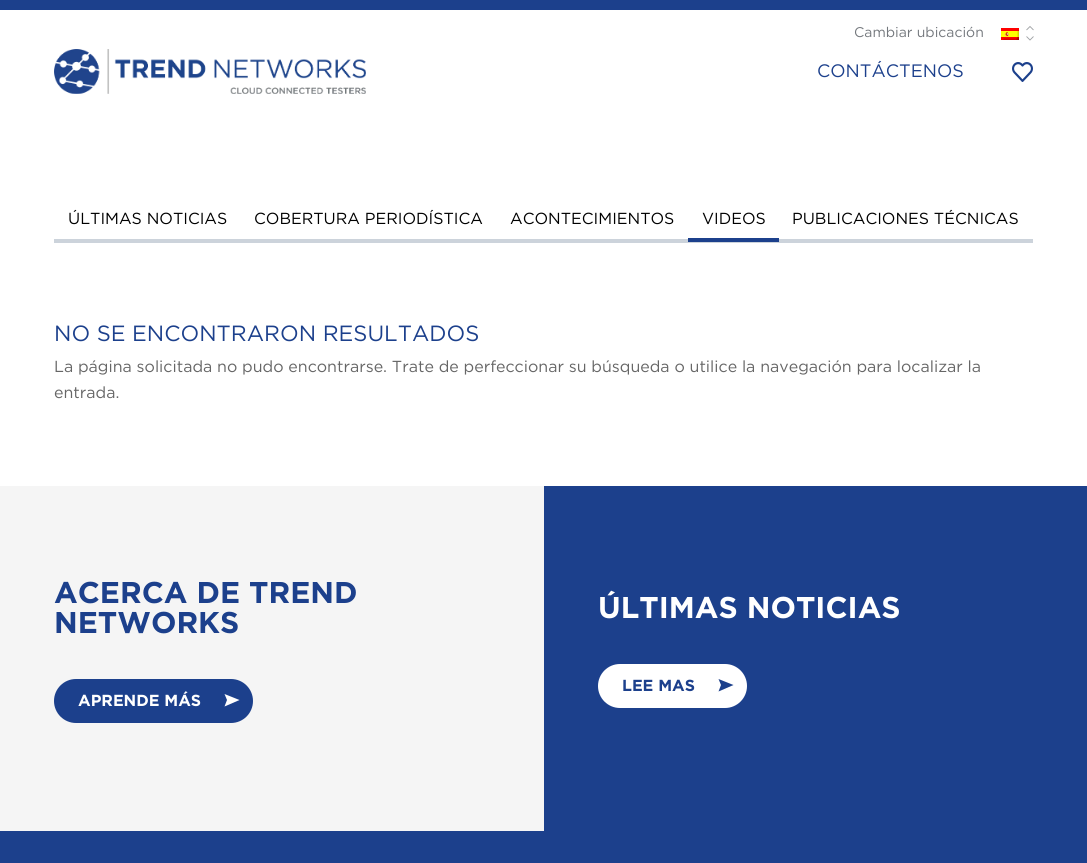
#include <cairo.h>
#include <math.h>
#include <stddef.h>

static cairo_t *c;
static void C(unsigned color){cairo_set_source_rgb(c, (color >> 16) / 255.0, (color >> 8 & 255) / 255.0, (color & 255) / 255.0);}
static void F(const char *family, double size, int italic, int bold){cairo_select_font_face(c, family, italic ? CAIRO_FONT_SLANT_ITALIC : CAIRO_FONT_SLANT_NORMAL,bold ? CAIRO_FONT_WEIGHT_BOLD : CAIRO_FONT_WEIGHT_NORMAL);cairo_set_font_size(c, size);}
static void T(double x, double y, const char *s){cairo_move_to(c, x, y);cairo_show_text(c, s);}
static void R(double x, double y, double w, double h){cairo_rectangle(c, x, y, w, h);cairo_fill(c);}
static void Q(double x, double y, double w, double h, double r){cairo_new_sub_path(c);cairo_arc(c, x + w - r, y + h - r, r, 0, M_PI / 2);cairo_arc(c, x + r, y + h - r, r, M_PI / 2, M_PI);cairo_arc(c, x + r, y + r, r, M_PI, 1.5 * M_PI);cairo_arc(c, x + w - r, y + r, r, 1.5 * M_PI, 2 * M_PI);cairo_close_path(c);}
static void I(const char *path, double x, double y, double w, double h){cairo_surface_t *image = cairo_image_surface_create_from_png(path);cairo_save(c);cairo_set_source_surface(c, image, x, y);cairo_rectangle(c, x, y, w, h);cairo_fill(c);cairo_restore(c);cairo_surface_destroy(image);}
int main(void) {
cairo_surface_t *surface = cairo_image_surface_create(CAIRO_FORMAT_RGB24, 1087, 863);
c = cairo_create(surface);
cairo_font_options_t *options = cairo_font_options_create();
cairo_font_options_set_hint_metrics(options, CAIRO_HINT_METRICS_OFF);
cairo_font_options_set_hint_style(options, CAIRO_HINT_STYLE_NONE);
cairo_set_font_options(c, options);
cairo_set_miter_limit(c, 4);
C(0xffffff);
cairo_paint(c);
C(0x1c408c);
R(0,0,1087,10);
F("Gotham",14,0,0);
C(0x74787d);
T(854,37,"Cambiar ubicación");
I("1.png",1001,28,18,12);
cairo_new_path(c);
cairo_move_to(c,1026.5,30);
cairo_line_to(c,1030,26.5);
cairo_line_to(c,1033.5,30);
cairo_move_to(c,1033.5,36.5);
cairo_line_to(c,1030,40);
cairo_line_to(c,1026.5,36.5);
C(0x9ea1a4);
cairo_set_line_width(c,.9);
cairo_stroke(c);
I("2.png",54,49,312,45);
F("Gotham",18,0,0);
C(0x1c408c);
T(817,77,"CONTÁCTENOS");
I("3.png",1012,62,21,20);
C(0xccd3db);
R(54,239,979,4);
F("Gotham",16,0,0);
C(0x000000);
T(68,224,"ÚLTIMAS NOTICIAS");
T(254,224,"COBERTURA PERIODÍSTICA");
T(510,224,"ACONTECIMIENTOS");
C(0x1c408c);
R(688,238,91,4);
C(0x000000);
T(702,224,"VIDEOS");
T(792,224,"PUBLICACIONES TÉCNICAS");
F("Gotham",22,0,0);
C(0x1c408c);
T(54,341,"NO SE ENCONTRARON RESULTADOS");
F("Gotham",16,0,0);
C(0x666666);
T(54,372,"La página solicitada no pudo encontrarse. Trate de perfeccionar su búsqueda o utilice la navegación para localizar la");
T(54,398,"entrada.");
C(0xf5f5f5);
R(0,486,544,345);
F("Gotham",30,0,1);
C(0x1c408c);
T(54,603,"ACERCA DE TREND");
T(54,633,"NETWORKS");
Q(54,679,199,44,22);
cairo_fill(c);
F("Gotham",16,0,1);
C(0xffffff);
T(78,706,"APRENDE MÁS");
cairo_new_path(c);
cairo_move_to(c,224.5,706.5);
cairo_line_to(c,227,700);
cairo_line_to(c,224.5,694);
cairo_line_to(c,239.5,700);
cairo_close_path(c);
cairo_fill(c);
C(0x1c408c);
R(544,486,543,345);
F("Gotham",30,0,1);
C(0xffffff);
T(598,618,"ÚLTIMAS NOTICIAS");
Q(598,664,149,44,22);
cairo_fill(c);
F("Gotham",16,0,1);
C(0x1c408c);
T(622,691,"LEE MAS");
cairo_new_path(c);
cairo_move_to(c,718.5,691.5);
cairo_line_to(c,721,685);
cairo_line_to(c,718.5,679);
cairo_line_to(c,733.5,685);
cairo_close_path(c);
cairo_fill(c);
R(0,831,1087,32);
cairo_surface_write_to_png(surface, "o.png");
cairo_font_options_destroy(options);
cairo_destroy(c);
cairo_surface_destroy(surface);
return 0;
}
